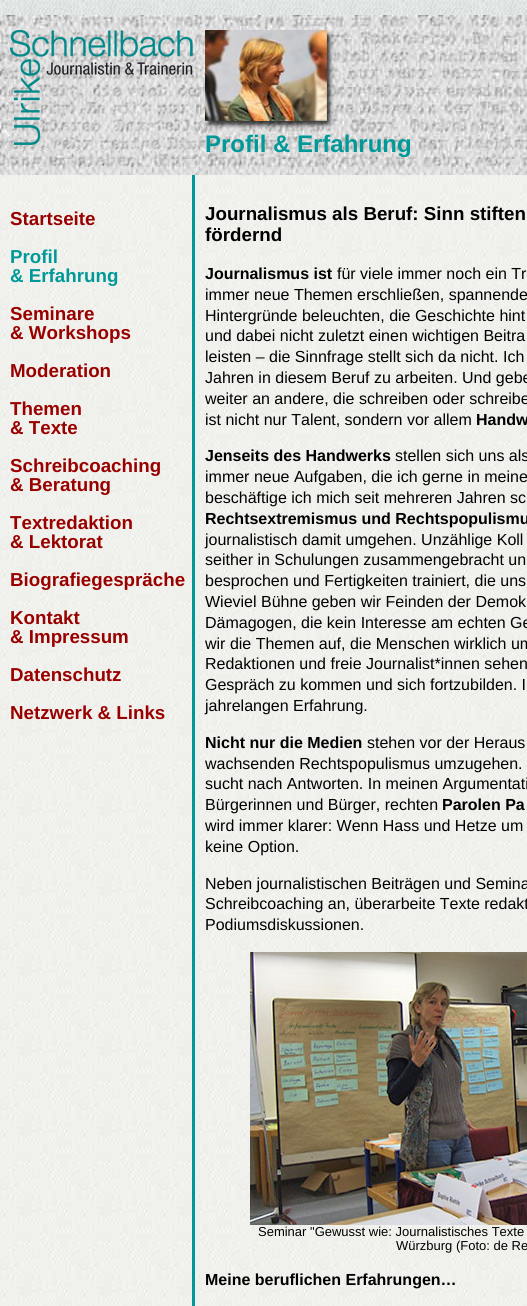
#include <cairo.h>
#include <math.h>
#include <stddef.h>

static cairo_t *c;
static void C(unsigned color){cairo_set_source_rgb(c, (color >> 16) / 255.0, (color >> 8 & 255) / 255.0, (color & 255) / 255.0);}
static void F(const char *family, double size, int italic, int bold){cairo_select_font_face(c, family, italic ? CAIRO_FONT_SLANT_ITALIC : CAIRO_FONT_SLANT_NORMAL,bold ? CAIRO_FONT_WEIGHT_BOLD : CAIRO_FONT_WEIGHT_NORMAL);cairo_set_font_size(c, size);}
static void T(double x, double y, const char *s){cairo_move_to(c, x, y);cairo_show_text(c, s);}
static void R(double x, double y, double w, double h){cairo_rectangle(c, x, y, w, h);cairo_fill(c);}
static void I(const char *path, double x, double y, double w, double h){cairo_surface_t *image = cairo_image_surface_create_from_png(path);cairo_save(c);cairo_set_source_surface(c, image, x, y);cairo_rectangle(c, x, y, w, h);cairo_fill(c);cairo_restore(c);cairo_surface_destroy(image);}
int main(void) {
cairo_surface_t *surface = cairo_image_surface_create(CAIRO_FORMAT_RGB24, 527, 1306);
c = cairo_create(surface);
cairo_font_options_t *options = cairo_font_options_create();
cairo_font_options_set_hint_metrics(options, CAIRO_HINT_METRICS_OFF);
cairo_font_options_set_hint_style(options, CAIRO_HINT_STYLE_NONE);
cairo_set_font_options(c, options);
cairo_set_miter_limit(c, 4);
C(0xffffff);
cairo_paint(c);
I("1.png",0,0,527,15);
I("2.png",0,175,527,1131);
I("3.png",0,15,527,160);
I("4.png",10,30,186,120);
I("5.png",205,30,134,100);
F("Liberation Sans",24,0,1);
C(0x009999);
T(205,152,"Profil & Erfahrung");
F("Liberation Sans",18.75,0,1);
C(0x990000);
T(10,225,"Startseite");
C(0x009999);
T(10,263,"Profil");
T(10,282,"& Erfahrung");
C(0x990000);
T(10,320,"Seminare");
T(10,339,"& Workshops");
T(10,377,"Moderation");
T(10,415,"Themen");
T(10,434,"& Texte");
T(10,472,"Schreibcoaching");
T(10,491,"& Beratung");
T(10,529,"Textredaktion");
T(10,548,"& Lektorat");
T(10,586,"Biografiegespräche");
T(10,624,"Kontakt");
T(10,643,"& Impressum");
T(10,681,"Datenschutz");
T(10,719,"Netzwerk & Links");
C(0x009999);
R(192,175,3,1131);
C(0x000000);
T(205,220,"Journalismus als Beruf: Sinn stiften");
T(205,241,"fördernd");
F("Liberation Sans",16,0,1);
T(205,279,"Journalismus ist");
F("Liberation Sans",16,0,0);
T(337,279,"für viele immer noch ein Tr");
T(205,300,"immer neue Themen erschließen, spannende");
T(205,321,"Hintergründe beleuchten, die Geschichte hint");
T(205,341,"und dabei nicht zuletzt einen wichtigen Beitra");
T(205,362,"leisten – die Sinnfrage stellt sich da nicht. Ich");
T(205,383,"Jahren in diesem Beruf zu arbeiten. Und gebe");
T(205,404,"weiter an andere, die schreiben oder schreibe");
T(205,425,"ist nicht nur Talent, sondern vor allem");
F("Liberation Sans",16,0,1);
T(476,425,"Handw");
T(205,461,"Jenseits des Handwerks");
F("Liberation Sans",16,0,0);
T(395,461,"stellen sich uns als");
T(205,482,"immer neue Aufgaben, die ich gerne in meine");
T(205,503,"beschäftige ich mich seit mehreren Jahren sc");
F("Liberation Sans",16,0,1);
T(205,524,"Rechtsextremismus und Rechtspopulismu");
F("Liberation Sans",16,0,0);
T(205,545,"journalistisch damit umgehen. Unzählige Koll");
T(205,565,"seither in Schulungen zusammengebracht un");
T(205,586,"besprochen und Fertigkeiten trainiert, die uns");
T(205,607,"Wieviel Bühne geben wir Feinden der Demok");
T(205,628,"Dämagogen, die kein Interesse am echten Ge");
T(205,649,"wir die Themen auf, die Menschen wirklich um");
T(205,669,"Redaktionen und freie Journalist*innen sehen");
T(205,690,"Gespräch zu kommen und sich fortzubilden. I");
T(205,711,"jahrelangen Erfahrung.");
F("Liberation Sans",16,0,1);
T(205,748,"Nicht nur die Medien");
F("Liberation Sans",16,0,0);
T(367,748,"stehen vor der Heraus");
T(205,769,"wachsenden Rechtspopulismus umzugehen.");
T(205,789,"sucht nach Antworten. In meinen Argumentati");
T(205,810,"Bürgerinnen und Bürger, rechten");
F("Liberation Sans",16,0,1);
T(442,810,"Parolen Pa");
F("Liberation Sans",16,0,0);
T(205,831,"wird immer klarer: Wenn Hass und Hetze um");
T(205,852,"keine Option.");
T(205,889,"Neben journalistischen Beiträgen und Semina");
T(205,909,"Schreibcoaching an, überarbeite Texte redakt");
T(205,930,"Podiumsdiskussionen.");
I("6.png",250,952,277,273);
F("Liberation Sans",13,0,0);
T(258,1236,"Seminar \"Gewusst wie: Journalistisches Texte");
T(396,1250,"Würzburg (Foto: de Re");
F("Liberation Sans",16,0,1);
T(205,1285,"Meine beruflichen Erfahrungen…");
cairo_surface_write_to_png(surface, "o.png");
cairo_font_options_destroy(options);
cairo_destroy(c);
cairo_surface_destroy(surface);
return 0;
}
